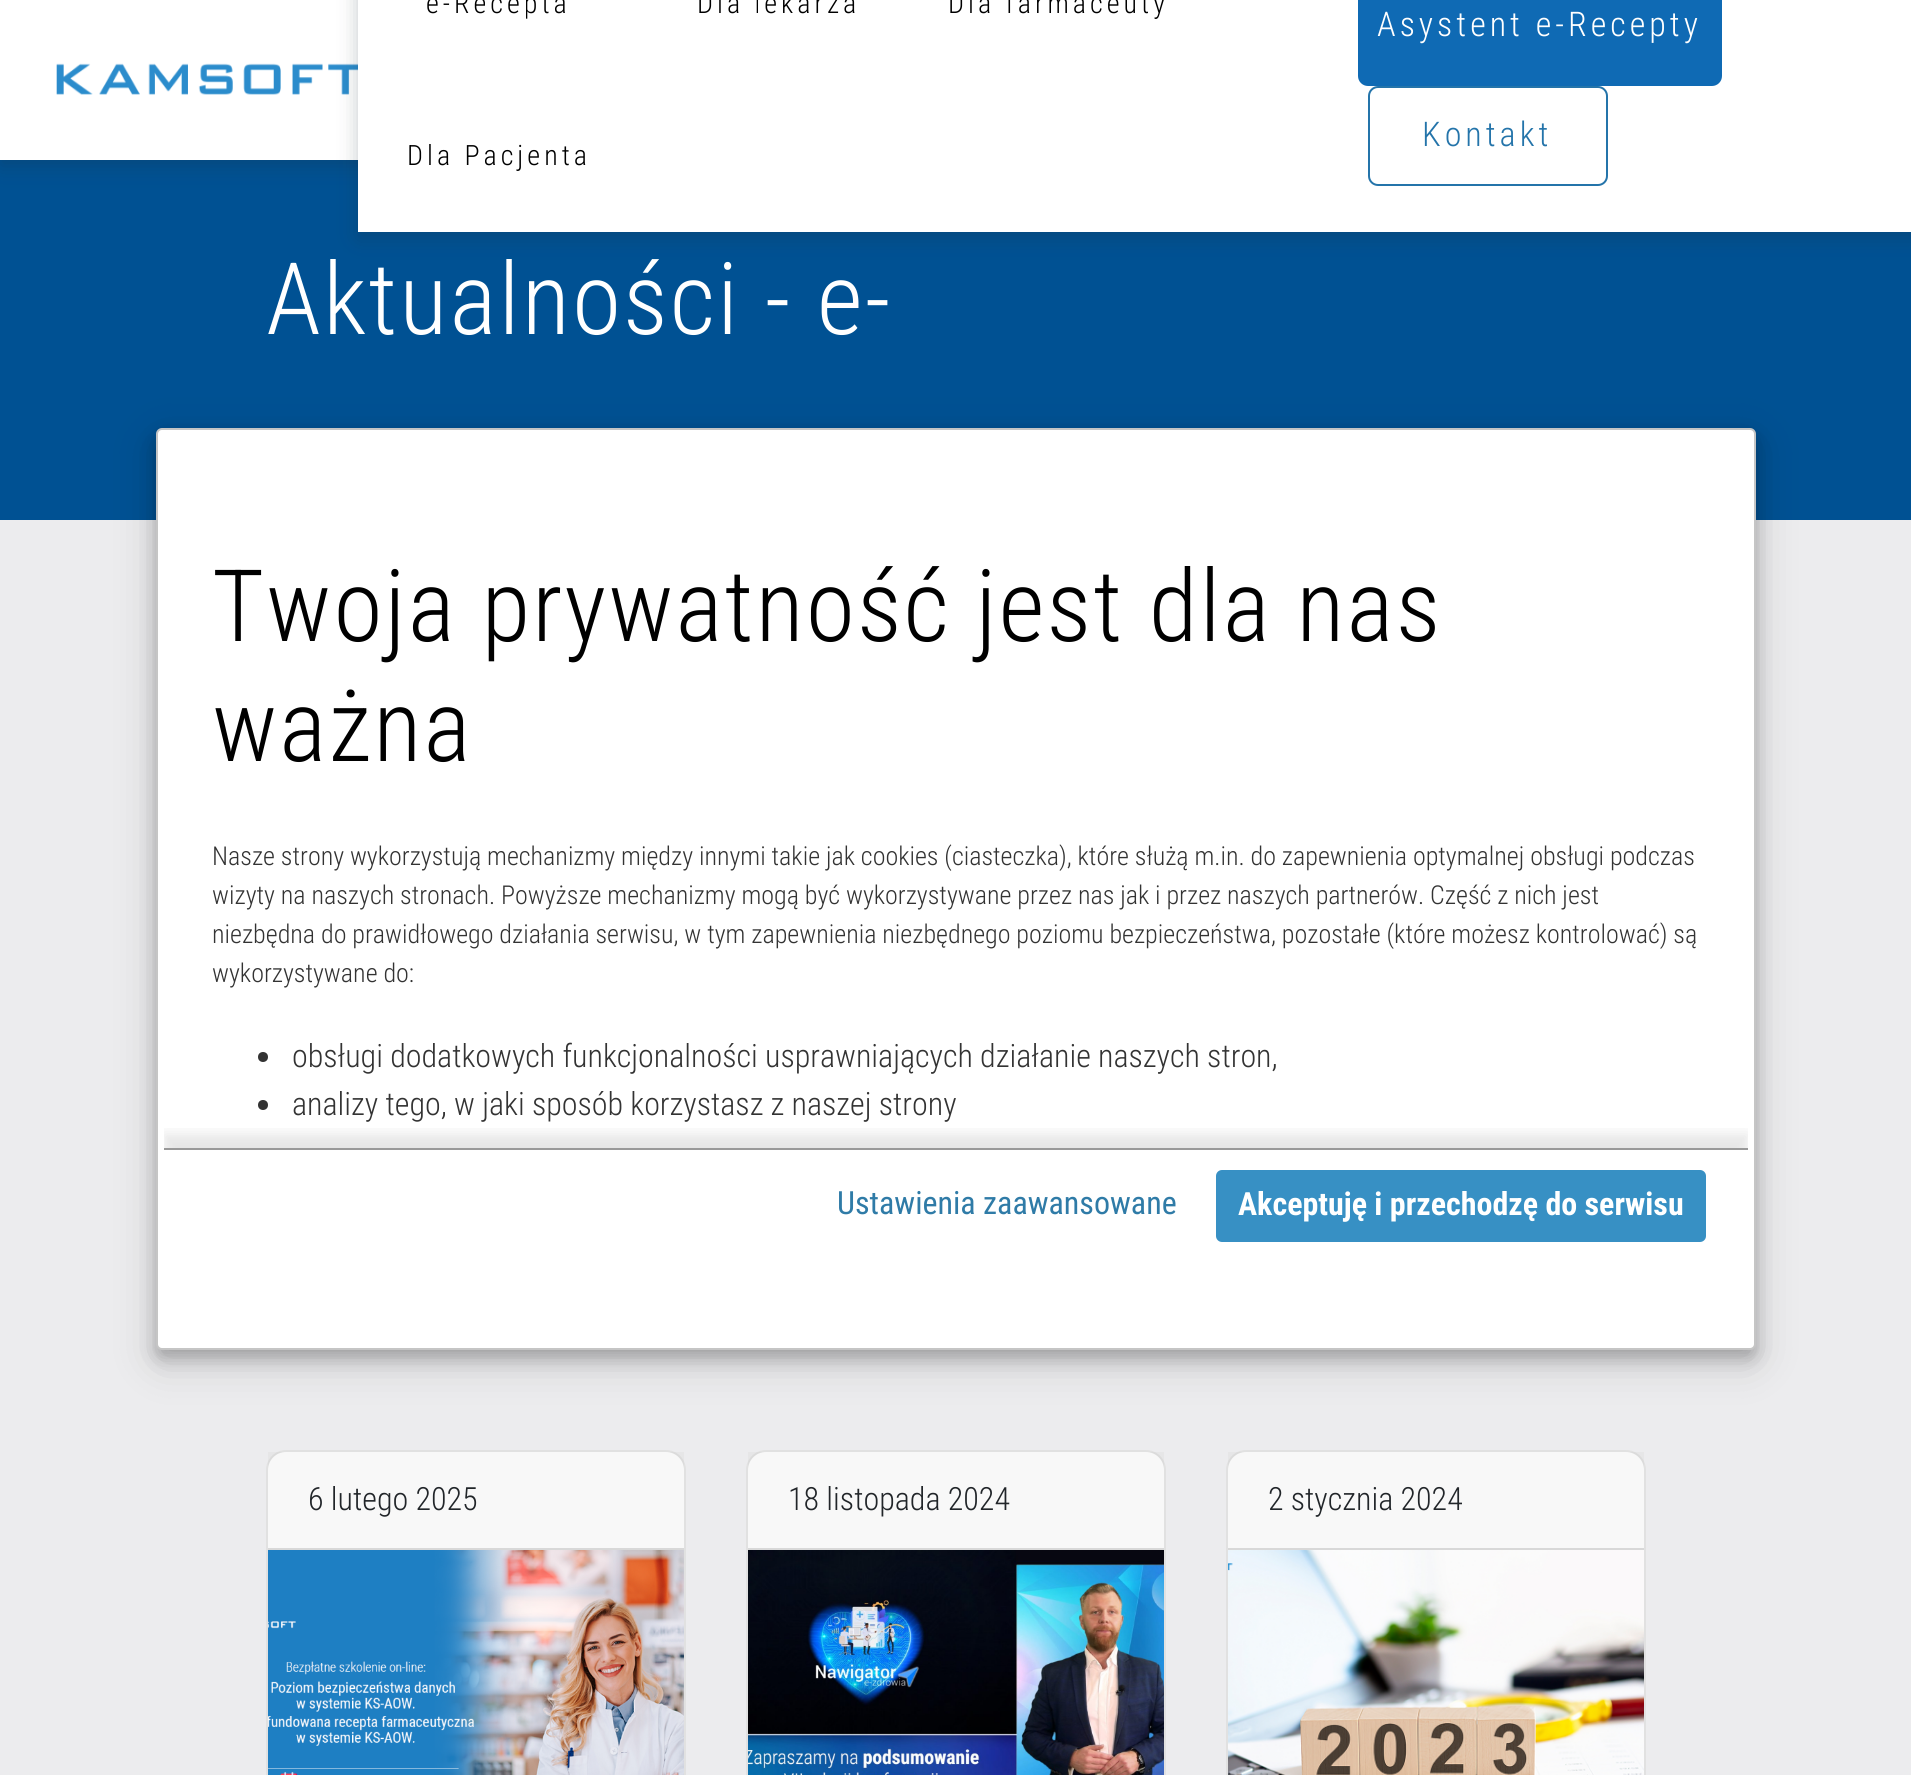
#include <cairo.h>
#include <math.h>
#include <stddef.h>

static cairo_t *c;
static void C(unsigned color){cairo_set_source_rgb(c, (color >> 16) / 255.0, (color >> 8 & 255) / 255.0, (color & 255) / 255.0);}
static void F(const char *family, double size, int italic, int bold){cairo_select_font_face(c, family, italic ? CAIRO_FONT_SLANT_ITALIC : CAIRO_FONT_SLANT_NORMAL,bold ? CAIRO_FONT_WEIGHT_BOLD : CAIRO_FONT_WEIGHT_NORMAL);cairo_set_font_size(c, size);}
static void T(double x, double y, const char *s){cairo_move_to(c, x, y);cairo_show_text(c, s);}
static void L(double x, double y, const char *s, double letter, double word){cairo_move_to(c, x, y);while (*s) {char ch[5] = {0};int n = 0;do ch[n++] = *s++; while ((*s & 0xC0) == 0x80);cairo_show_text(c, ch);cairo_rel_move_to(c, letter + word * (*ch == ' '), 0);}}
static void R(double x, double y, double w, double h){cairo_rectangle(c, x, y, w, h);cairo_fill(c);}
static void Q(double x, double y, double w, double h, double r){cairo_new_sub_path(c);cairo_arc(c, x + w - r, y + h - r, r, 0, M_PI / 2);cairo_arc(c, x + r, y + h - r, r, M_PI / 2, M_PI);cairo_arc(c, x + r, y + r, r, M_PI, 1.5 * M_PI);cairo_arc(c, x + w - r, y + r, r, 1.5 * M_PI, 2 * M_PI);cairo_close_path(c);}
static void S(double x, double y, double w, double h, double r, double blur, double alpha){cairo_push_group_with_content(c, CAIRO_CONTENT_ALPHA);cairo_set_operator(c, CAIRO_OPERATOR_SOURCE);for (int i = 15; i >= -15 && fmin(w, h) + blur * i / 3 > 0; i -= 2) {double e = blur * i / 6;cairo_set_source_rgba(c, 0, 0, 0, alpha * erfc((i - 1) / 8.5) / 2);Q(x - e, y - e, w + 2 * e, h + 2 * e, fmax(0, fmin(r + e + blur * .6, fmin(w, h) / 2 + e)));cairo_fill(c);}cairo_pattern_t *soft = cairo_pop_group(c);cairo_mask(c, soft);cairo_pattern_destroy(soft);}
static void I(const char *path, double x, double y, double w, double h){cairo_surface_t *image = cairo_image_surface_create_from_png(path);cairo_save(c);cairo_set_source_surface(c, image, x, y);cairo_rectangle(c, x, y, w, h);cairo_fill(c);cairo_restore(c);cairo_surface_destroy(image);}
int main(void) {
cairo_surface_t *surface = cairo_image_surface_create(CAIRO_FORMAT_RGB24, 1911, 1775);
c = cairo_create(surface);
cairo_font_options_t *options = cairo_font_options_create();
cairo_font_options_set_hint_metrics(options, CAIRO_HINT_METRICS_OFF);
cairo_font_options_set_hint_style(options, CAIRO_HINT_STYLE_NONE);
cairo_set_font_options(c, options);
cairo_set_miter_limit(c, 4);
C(0x005193);
cairo_paint(c);
C(0x1b2a35);
S(0,6,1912,160,0,10,.25);
C(0xffffff);
R(0,0,358,160);
I("1.png",56,63,302,32);
C(0x1b2a35);
S(358,-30,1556,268,0,10,.25);
C(0xffffff);
R(358,0,1553,232);
F("Roboto Condensed Light",28,0,0);
C(0x000000);
L(426,13,"e-Recepta",4,0);
L(697,13,"Dla lekarza",4,0);
L(948,13,"Dla farmaceuty",4,0);
L(407,165,"Dla Pacjenta",4,0);
C(0x0f6ab4);
Q(1358,-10,364,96,10);
cairo_fill(c);
F("Roboto Condensed Light",34,0,0);
C(0xffffff);
L(1377,36,"Asystent e-Recepty",4,0);
Q(1369,87,238,98,9);
C(0x2474aa);
cairo_stroke(c);
L(1422,146,"Kontakt",4,0);
F("Roboto Condensed Light",100,0,0);
C(0xffffff);
L(266,334,"Aktualności - e-",2,0);
C(0xececee);
R(0,520,1911,1255);
C(0x000000);
S(156,440,1600,922,6,20,.19);
S(156,436,1600,922,6,8,.2);
C(0xffffff);
Q(157,429,1598,920,5);
cairo_fill_preserve(c);
C(0xc5c5c5);
cairo_stroke(c);
C(0x000000);
L(212,641,"Twoja prywatność jest dla nas",2,0);
L(212,761,"ważna",2,0);
F("Roboto Condensed Light",26,0,0);
C(0x333333);
T(212,865,"Nasze strony wykorzystują mechanizmy między innymi takie jak cookies (ciasteczka), które służą m.in. do zapewnienia optymalnej obsługi podczas");
T(212,904,"wizyty na naszych stronach. Powyższe mechanizmy mogą być wykorzystywane przez nas jak i przez naszych partnerów. Część z nich jest");
T(212,943,"niezbędna do prawidłowego działania serwisu, w tym zapewnienia niezbędnego poziomu bezpieczeństwa, pozostałe (które możesz kontrolować) są");
T(212,982,"wykorzystywane do:");
cairo_new_path(c);
cairo_arc(c,263,1057,5,0,2 * M_PI);
cairo_fill(c);
F("Roboto Condensed Light",32,0,0);
T(292,1067,"obsługi dodatkowych funkcjonalności usprawniających działanie naszych stron,");
cairo_new_path(c);
cairo_arc(c,263,1105,5,0,2 * M_PI);
cairo_fill(c);
T(292,1115,"analizy tego, w jaki sposób korzystasz z naszej strony");
cairo_save(c);
cairo_rectangle(c,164,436,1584,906);
cairo_clip(c);
cairo_rectangle(c,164,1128,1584,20);
cairo_clip(c);
C(0x000000);
S(164,1134,1584,98,0,7,.1);
cairo_restore(c);
C(0x999999);
R(164,1148,1584,2);
F("Roboto Condensed",32,0,0);
C(0x2f7ba7);
T(837,1214,"Ustawienia zaawansowane");
C(0x3790c4);
Q(1217,1171,488,70,5);
cairo_fill_preserve(c);
cairo_stroke(c);
F("Roboto Condensed",32,0,1);
C(0xffffff);
T(1238,1215,"Akceptuję i przechodzę do serwisu");
Q(266,1450,420,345,20);
cairo_fill(c);
Q(267,1451,418,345,19);
cairo_set_source_rgba(c,0,0,0,0.12);
cairo_stroke(c);
cairo_set_source_rgba(c,0,0,0,0.03);
R(268,1452,416,96);
C(0xd8d8d8);
R(268,1548,416,2);
F("Roboto Condensed Light",32,0,0);
C(0x212529);
T(308,1510,"6 lutego 2025");
I("2.png",268,1550,416,225);
C(0xffffff);
Q(746,1450,420,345,20);
cairo_fill(c);
Q(747,1451,418,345,19);
cairo_set_source_rgba(c,0,0,0,0.12);
cairo_stroke(c);
cairo_set_source_rgba(c,0,0,0,0.03);
R(748,1452,416,96);
C(0xd8d8d8);
R(748,1548,416,2);
C(0x212529);
T(788,1510,"18 listopada 2024");
I("3.png",748,1550,416,225);
C(0xffffff);
Q(1226,1450,420,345,20);
cairo_fill(c);
Q(1227,1451,418,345,19);
cairo_set_source_rgba(c,0,0,0,0.12);
cairo_stroke(c);
cairo_set_source_rgba(c,0,0,0,0.03);
R(1228,1452,416,96);
C(0xd8d8d8);
R(1228,1548,416,2);
C(0x212529);
T(1268,1510,"2 stycznia 2024");
I("4.png",1228,1550,416,225);
cairo_surface_write_to_png(surface, "o.png");
cairo_font_options_destroy(options);
cairo_destroy(c);
cairo_surface_destroy(surface);
return 0;
}
